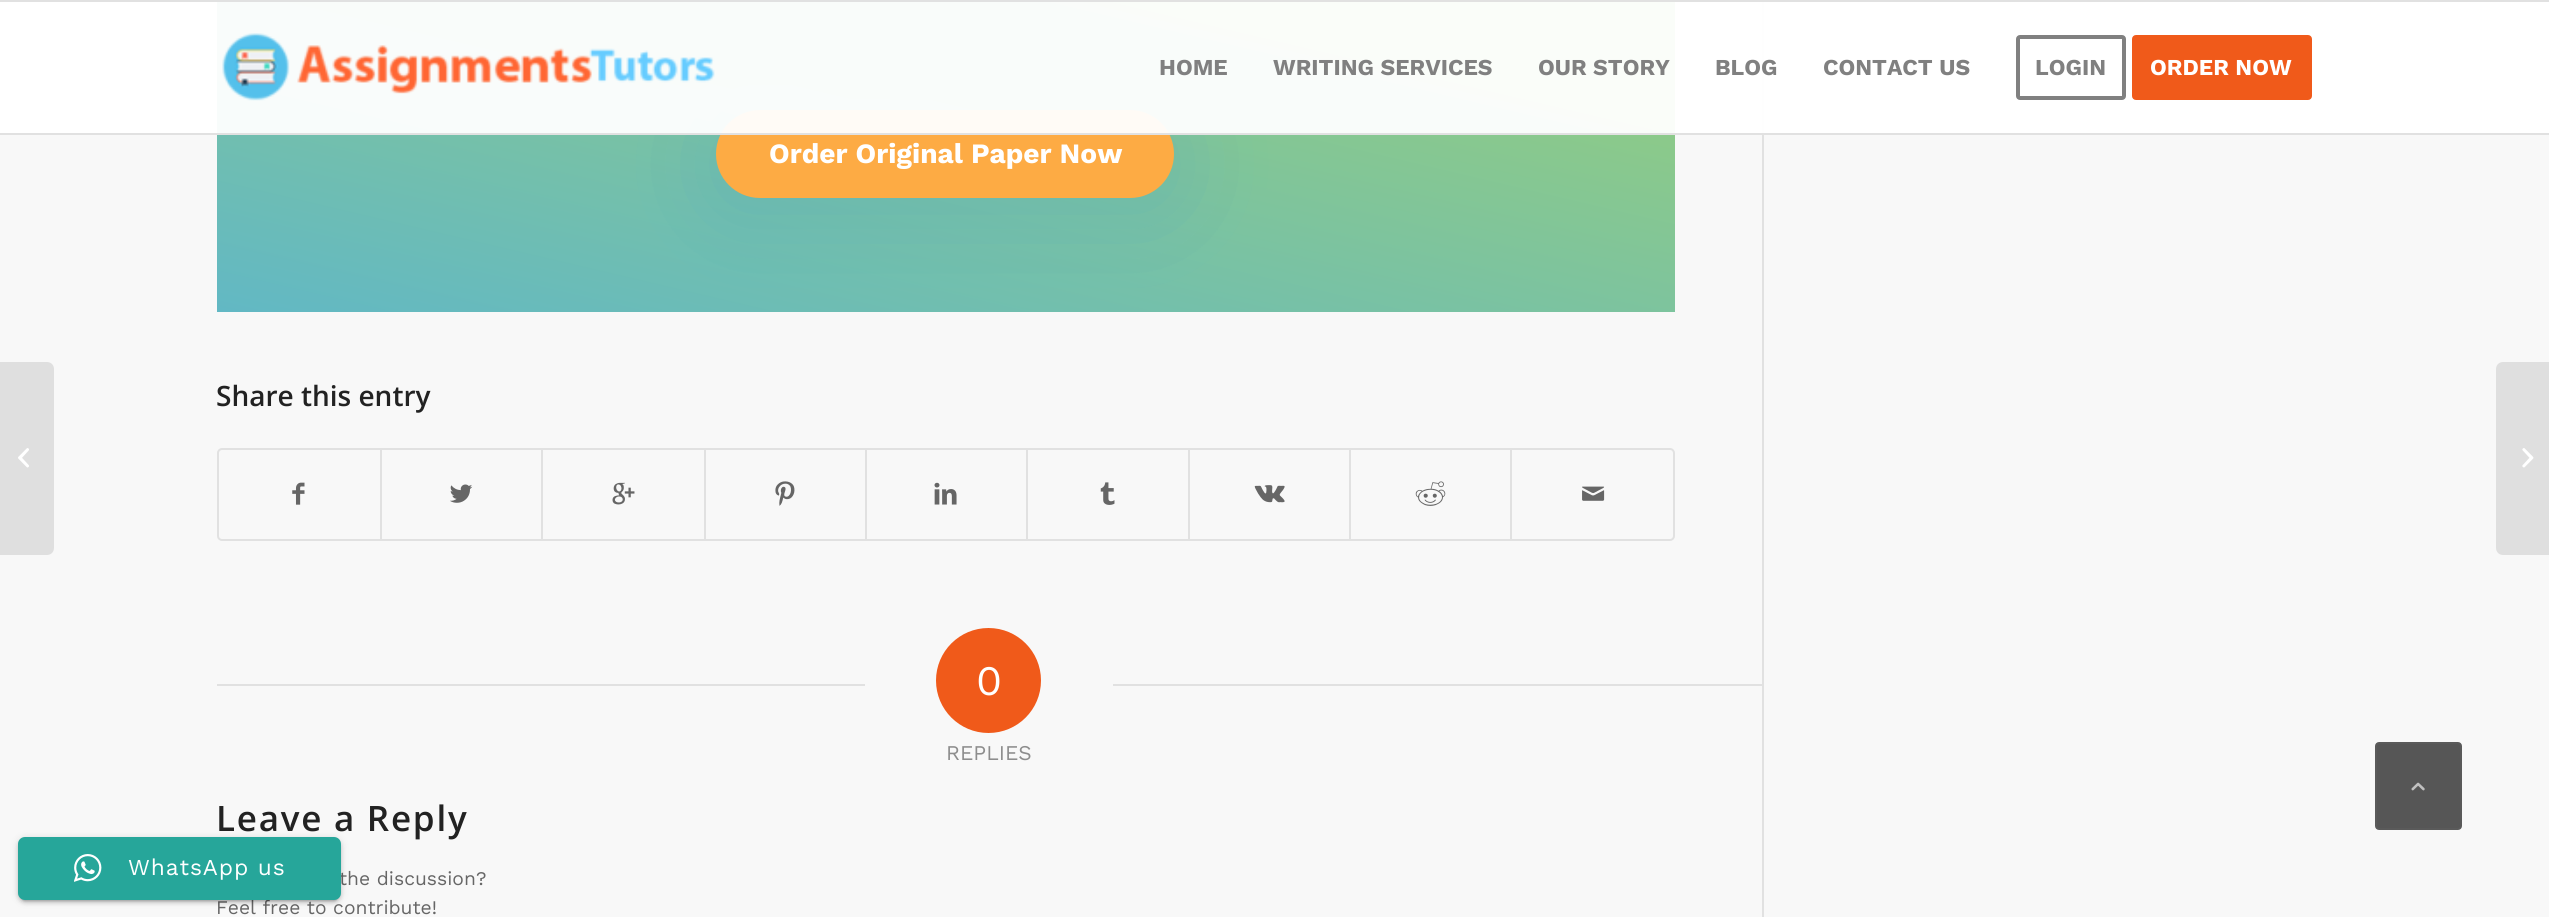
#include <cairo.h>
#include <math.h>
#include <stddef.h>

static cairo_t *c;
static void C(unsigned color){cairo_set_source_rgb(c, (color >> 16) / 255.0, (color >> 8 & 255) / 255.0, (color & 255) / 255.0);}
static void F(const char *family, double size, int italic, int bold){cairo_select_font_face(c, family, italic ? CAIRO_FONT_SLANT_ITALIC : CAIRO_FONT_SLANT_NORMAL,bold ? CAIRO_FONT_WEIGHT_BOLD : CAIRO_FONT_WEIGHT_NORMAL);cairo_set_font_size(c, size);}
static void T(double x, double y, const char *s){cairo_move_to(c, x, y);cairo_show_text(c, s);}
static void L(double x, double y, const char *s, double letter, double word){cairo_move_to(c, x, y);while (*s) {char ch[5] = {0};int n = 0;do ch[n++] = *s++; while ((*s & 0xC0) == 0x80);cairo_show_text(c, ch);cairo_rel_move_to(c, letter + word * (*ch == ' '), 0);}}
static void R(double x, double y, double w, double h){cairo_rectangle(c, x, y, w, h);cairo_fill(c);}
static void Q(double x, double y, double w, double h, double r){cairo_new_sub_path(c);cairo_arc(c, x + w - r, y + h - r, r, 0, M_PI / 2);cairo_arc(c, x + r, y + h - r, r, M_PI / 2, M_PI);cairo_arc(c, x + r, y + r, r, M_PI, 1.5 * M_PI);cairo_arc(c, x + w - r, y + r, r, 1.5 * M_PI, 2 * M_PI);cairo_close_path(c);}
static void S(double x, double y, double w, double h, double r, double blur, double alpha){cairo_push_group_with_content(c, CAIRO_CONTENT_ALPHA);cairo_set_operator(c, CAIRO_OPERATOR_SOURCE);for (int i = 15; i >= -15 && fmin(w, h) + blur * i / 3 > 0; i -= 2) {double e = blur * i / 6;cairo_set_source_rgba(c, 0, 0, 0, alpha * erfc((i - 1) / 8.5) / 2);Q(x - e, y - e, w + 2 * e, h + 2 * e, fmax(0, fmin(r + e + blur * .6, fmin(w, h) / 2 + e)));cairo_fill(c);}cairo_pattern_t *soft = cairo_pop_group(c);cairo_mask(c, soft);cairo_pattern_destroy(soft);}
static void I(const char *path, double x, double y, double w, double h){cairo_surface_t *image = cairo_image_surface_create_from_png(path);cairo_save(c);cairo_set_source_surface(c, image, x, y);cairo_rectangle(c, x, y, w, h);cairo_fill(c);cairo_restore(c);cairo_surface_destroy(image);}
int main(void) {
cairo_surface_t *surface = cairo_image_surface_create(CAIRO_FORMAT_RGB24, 2549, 917);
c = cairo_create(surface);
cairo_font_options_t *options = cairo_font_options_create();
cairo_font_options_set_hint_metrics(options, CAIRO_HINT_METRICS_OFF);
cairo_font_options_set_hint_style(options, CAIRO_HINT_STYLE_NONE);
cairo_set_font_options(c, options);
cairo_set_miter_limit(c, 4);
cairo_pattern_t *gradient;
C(0xf8f8f8);
cairo_paint(c);
C(0xe1e1e1);
R(1762,0,2,917);
gradient = cairo_pattern_create_linear(869,465,1022,-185);
cairo_pattern_add_color_stop_rgba(gradient,0,0.384,0.722,0.769,1);
cairo_pattern_add_color_stop_rgba(gradient,1,0.6,0.812,0.467,1);
cairo_set_source(c,gradient);
cairo_pattern_destroy(gradient);
R(217,2,1458,310);
C(0x1583e9);
S(702,107,486,115,57.5,44,.15);
C(0xfdab44);
Q(716,110,458,88,44);
cairo_fill(c);
cairo_set_source_rgba(c,1,1,1,0.95);
R(0,2,2549,131);
C(0xe1e1e1);
R(0,0,2549,2);
R(0,133,2549,2);
I("1.png",222,33,493,68);
F("Work Sans",22.75,0,1);
C(0x808080);
T(1159,75,"HOME");
T(1273,75,"WRITING SERVICES");
T(1538,75,"OUR STORY");
T(1715,75,"BLOG");
T(1823,75,"CONTACT US");
Q(2018,37,106,61,2);
cairo_set_line_width(c,4);
cairo_stroke(c);
T(2035,75,"LOGIN");
C(0xf05a1a);
Q(2134,37,176,61,2);
cairo_fill_preserve(c);
cairo_stroke(c);
C(0xffffff);
T(2150,75,"ORDER NOW");
C(0xdfdfdf);
cairo_new_path(c);
cairo_move_to(c,0,362);
cairo_line_to(c,47,362);
cairo_curve_to(c,51,362,54,365,54,369);
cairo_line_to(c,54,548);
cairo_curve_to(c,54,552,51,555,47,555);
cairo_line_to(c,0,555);
cairo_close_path(c);
cairo_fill(c);
I("2.png",18,448,11,20);
F("Work Sans",28,0,1);
C(0xffffff);
T(769,163,"Order Original Paper Now");
F("Open Sans SemiBold",28,0,0);
C(0x222222);
T(216,406,"Share this entry");
Q(218,449,1456,91,4);
C(0xe1e1e1);
cairo_set_line_width(c,2);
cairo_stroke(c);
I("3.png",292,482,13,23);
R(380,450,2,89);
I("4.png",450,484,23,19);
R(541,450,2,89);
I("5.png",612,482,23,23);
R(704,450,2,89);
I("6.png",775,481,20,25);
R(865,450,2,89);
I("7.png",934,482,23,23);
R(1026,450,2,89);
I("8.png",1100,482,15,23);
R(1188,450,2,89);
I("9.png",1254,485,31,18);
R(1349,450,2,89);
I("10.png",1415,481,31,25);
R(1510,450,2,89);
I("11.png",1582,486,23,15);
R(217,684,648,2);
C(0xf05a1a);
cairo_arc(c,988.5,680.5,52.5,0,2 * M_PI);
cairo_fill(c);
F("Work Sans",42,0,0);
C(0xffffff);
T(976,695,"0");
C(0xe1e1e1);
R(1113,684,649,2);
F("Work Sans",21,0,0);
C(0x8d8d8d);
T(946,760,"REPLIES");
F("Open Sans SemiBold",35,0,0);
C(0x222222);
L(216,831,"Leave a Reply",1.75,0);
F("Work Sans",19.3,0,0);
C(0x666666);
T(339,885,"the discussion?");
T(216,914,"Feel free to contribute!");
C(0xdfdfdf);
cairo_new_path(c);
cairo_move_to(c,2503,362);
cairo_line_to(c,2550,362);
cairo_line_to(c,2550,555);
cairo_line_to(c,2503,555);
cairo_curve_to(c,2499,555,2496,552,2496,548);
cairo_line_to(c,2496,369);
cairo_curve_to(c,2496,365,2499,362,2503,362);
cairo_close_path(c);
cairo_fill(c);
I("12.png",2522,448,12,20);
C(0x565656);
Q(2376,743,85,86,3);
cairo_fill_preserve(c);
C(0x5a5a5a);
cairo_stroke(c);
I("13.png",2411,782,14,9);
C(0x000000);
S(21,845,317,56,4,1,.2);
S(18,838,323,63,7,4.5,.12);
S(18,840,323,63,7,2,.14);
C(0x26a69a);
Q(18,837,323,63,7);
cairo_fill(c);
I("14.png",74,854,28,28);
F("Work Sans",22.75,0,0);
C(0xffffff);
L(128,875,"WhatsApp us",.9,0);
cairo_surface_write_to_png(surface, "o.png");
cairo_font_options_destroy(options);
cairo_destroy(c);
cairo_surface_destroy(surface);
return 0;
}
